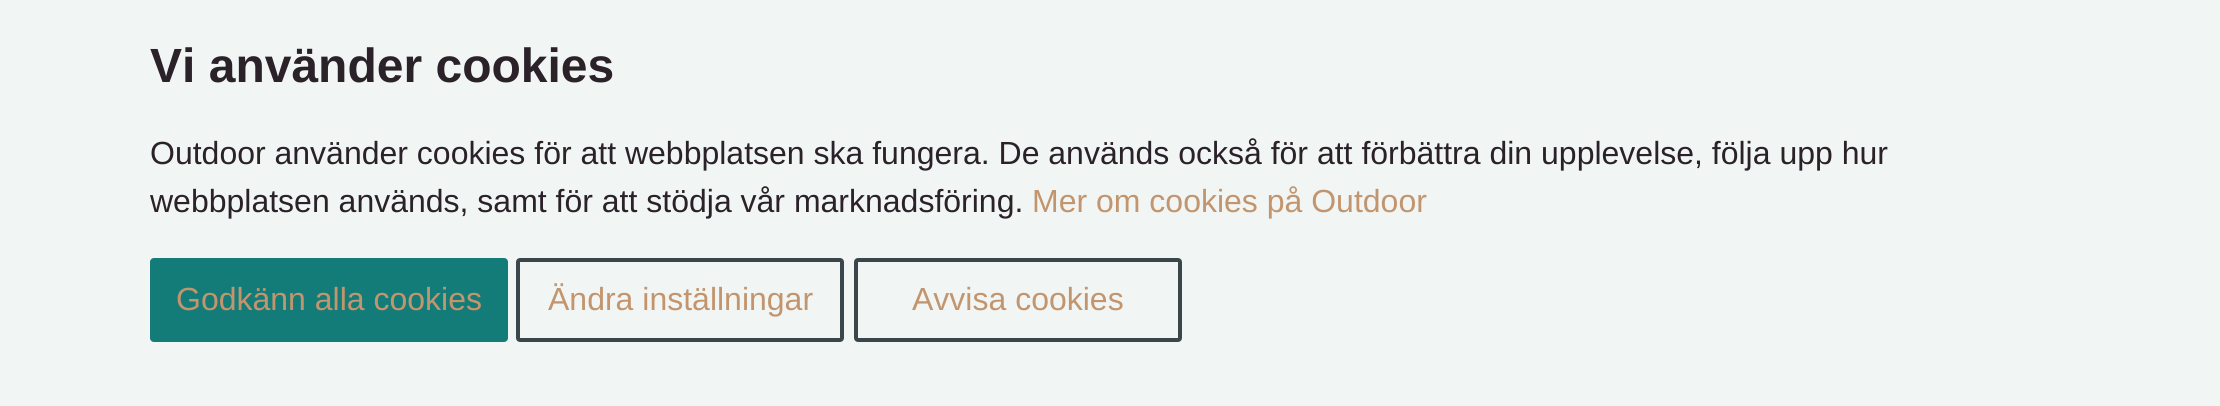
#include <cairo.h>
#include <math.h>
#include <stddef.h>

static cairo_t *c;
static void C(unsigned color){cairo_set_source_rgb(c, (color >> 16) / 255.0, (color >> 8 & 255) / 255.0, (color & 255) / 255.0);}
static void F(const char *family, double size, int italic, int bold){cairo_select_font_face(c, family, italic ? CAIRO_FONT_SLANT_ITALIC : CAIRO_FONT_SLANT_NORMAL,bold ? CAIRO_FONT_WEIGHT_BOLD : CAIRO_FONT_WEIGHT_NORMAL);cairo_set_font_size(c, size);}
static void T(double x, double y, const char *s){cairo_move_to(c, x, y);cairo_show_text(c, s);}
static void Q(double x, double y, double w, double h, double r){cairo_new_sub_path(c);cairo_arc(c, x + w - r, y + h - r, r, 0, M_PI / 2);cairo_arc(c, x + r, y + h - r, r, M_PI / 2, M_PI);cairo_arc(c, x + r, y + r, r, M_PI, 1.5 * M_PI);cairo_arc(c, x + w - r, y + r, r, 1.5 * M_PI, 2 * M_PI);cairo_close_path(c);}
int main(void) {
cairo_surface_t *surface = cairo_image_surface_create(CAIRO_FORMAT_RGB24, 2220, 406);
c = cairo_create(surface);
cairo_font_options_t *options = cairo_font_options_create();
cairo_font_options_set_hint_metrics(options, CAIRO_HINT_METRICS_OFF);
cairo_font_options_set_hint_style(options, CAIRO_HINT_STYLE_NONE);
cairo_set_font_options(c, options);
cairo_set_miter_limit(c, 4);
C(0xf1f6f4);
cairo_paint(c);
F("Liberation Sans",48,0,1);
C(0x2b2129);
T(150,82,"Vi använder cookies");
F("Liberation Sans",32,0,0);
T(150,164,"Outdoor använder cookies för att webbplatsen ska fungera. De används också för att förbättra din upplevelse, följa upp hur");
T(150,212,"webbplatsen används, samt för att stödja vår marknadsföring.");
C(0xc2956e);
T(1032,212,"Mer om cookies på Outdoor");
C(0x137c78);
Q(150,258,358,84,4);
cairo_fill(c);
C(0xc2956e);
T(176,310,"Godkänn alla cookies");
Q(518,260,324,80,2);
C(0x3a4649);
cairo_set_line_width(c,4);
cairo_stroke(c);
C(0xc2956e);
T(548,310,"Ändra inställningar");
Q(856,260,324,80,2);
C(0x3a4649);
cairo_stroke(c);
C(0xc2956e);
T(912,310,"Avvisa cookies");
cairo_surface_write_to_png(surface, "o.png");
cairo_font_options_destroy(options);
cairo_destroy(c);
cairo_surface_destroy(surface);
return 0;
}
